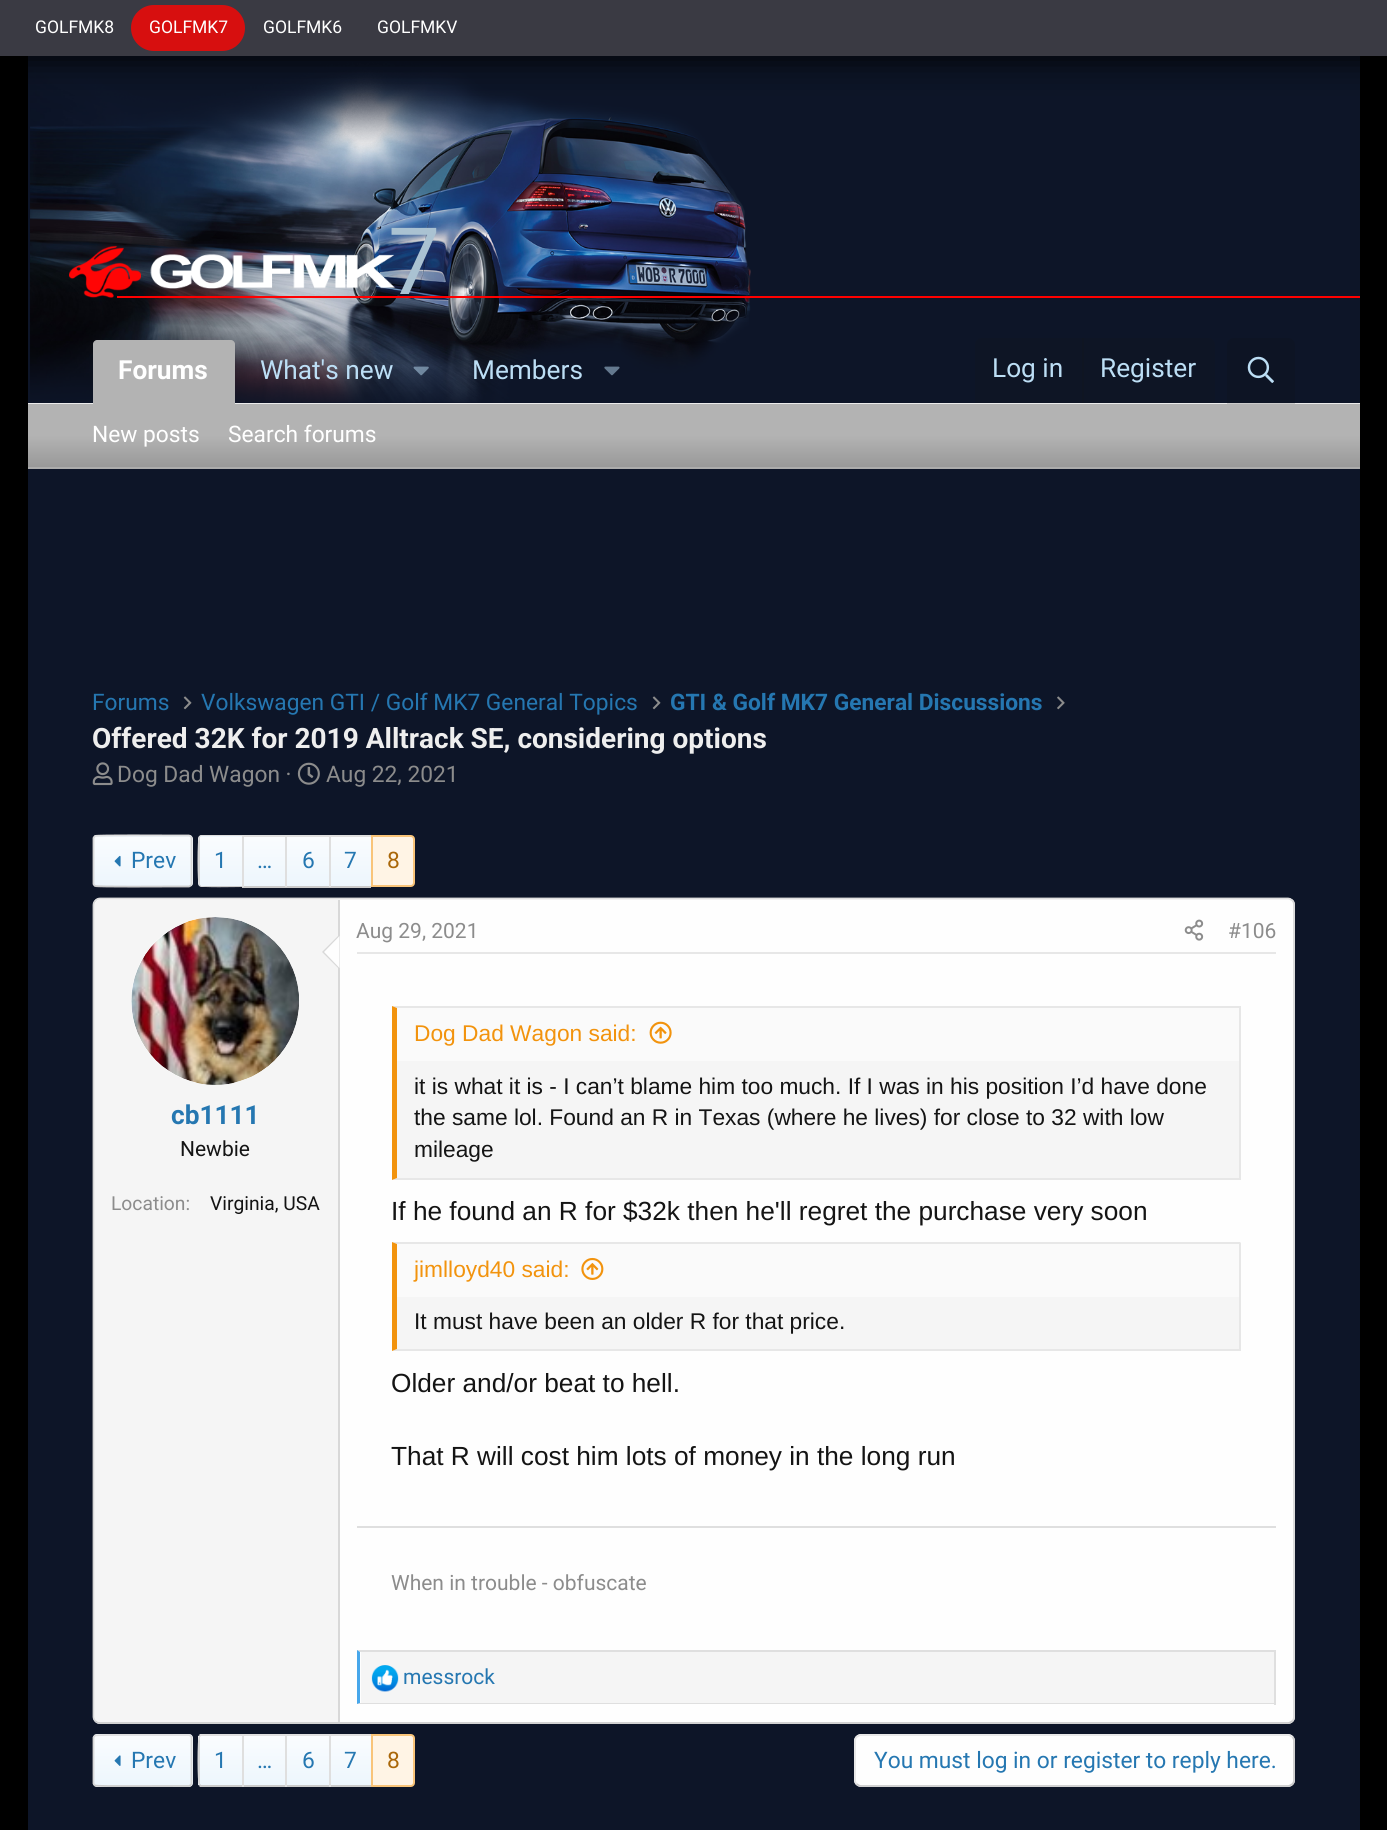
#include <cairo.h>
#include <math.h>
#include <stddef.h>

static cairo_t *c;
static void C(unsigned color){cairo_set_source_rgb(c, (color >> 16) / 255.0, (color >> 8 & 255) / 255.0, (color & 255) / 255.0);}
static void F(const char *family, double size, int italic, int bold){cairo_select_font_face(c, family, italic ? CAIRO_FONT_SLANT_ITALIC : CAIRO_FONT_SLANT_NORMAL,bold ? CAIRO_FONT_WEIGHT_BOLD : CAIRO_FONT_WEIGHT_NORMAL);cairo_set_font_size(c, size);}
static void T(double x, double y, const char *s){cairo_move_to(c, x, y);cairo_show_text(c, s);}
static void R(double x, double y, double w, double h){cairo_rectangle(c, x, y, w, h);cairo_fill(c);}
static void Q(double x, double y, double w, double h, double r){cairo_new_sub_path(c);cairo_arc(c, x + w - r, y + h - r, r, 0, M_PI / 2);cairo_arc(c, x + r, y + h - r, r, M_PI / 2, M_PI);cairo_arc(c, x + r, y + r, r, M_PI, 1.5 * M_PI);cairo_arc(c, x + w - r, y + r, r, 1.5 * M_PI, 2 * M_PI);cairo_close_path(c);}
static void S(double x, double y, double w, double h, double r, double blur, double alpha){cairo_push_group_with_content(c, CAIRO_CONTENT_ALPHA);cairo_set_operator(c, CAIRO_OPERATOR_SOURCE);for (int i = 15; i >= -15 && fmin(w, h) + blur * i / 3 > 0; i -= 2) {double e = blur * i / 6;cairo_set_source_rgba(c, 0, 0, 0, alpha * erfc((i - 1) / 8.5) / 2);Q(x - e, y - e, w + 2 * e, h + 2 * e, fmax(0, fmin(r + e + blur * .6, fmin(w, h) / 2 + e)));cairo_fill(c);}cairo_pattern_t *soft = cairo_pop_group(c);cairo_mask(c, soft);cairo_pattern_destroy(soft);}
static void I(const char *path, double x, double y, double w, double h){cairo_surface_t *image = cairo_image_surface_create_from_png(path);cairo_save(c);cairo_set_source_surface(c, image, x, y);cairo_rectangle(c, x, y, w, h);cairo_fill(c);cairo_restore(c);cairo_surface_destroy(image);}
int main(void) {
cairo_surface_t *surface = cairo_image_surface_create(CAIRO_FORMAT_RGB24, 1387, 1830);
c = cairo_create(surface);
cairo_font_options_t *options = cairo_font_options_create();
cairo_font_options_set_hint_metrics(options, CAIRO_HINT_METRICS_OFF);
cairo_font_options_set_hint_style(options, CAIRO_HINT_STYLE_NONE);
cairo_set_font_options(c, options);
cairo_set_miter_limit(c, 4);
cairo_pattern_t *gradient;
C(0x000000);
cairo_paint(c);
C(0x0d1528);
R(28,56,1332,347);
I("1.png",28,56,791,347);
C(0x000000);
S(2,2,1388,56,0,17.5,1);
C(0x3a3a43);
R(0,0,1387,56);
F("Roboto",17.5,0,0);
C(0xffffff);
T(35,33,"GOLFMK8");
C(0xd70f0f);
Q(131,5,114,46,23);
cairo_fill(c);
C(0xffffff);
T(149,33,"GOLFMK7");
T(263,33,"GOLFMK6");
T(377,33,"GOLFMKV");
C(0xececec);
R(28,403,1332,1);
I("2.png",69,245,72,53);
I("3.png",150,254,246,35);
F("Roboto",93,0,0);
C(0xaac2d2);
T(388,294,"7");
C(0xff0000);
R(117,296,1243,2);
C(0xb3b3b3);
cairo_new_path(c);
cairo_move_to(c,97,340);
cairo_line_to(c,231,340);
cairo_curve_to(c,233,340,235,342,235,344);
cairo_line_to(c,235,404);
cairo_line_to(c,93,404);
cairo_line_to(c,93,344);
cairo_curve_to(c,93,342,95,340,97,340);
cairo_close_path(c);
cairo_fill(c);
F("Roboto",26.25,0,1);
C(0xffffff);
T(118,379,"Forums");
F("Roboto",26.25,0,0);
C(0xbcdef5);
T(260,379,"What's new");
I("4.png",413,366,16,10);
T(472,379,"Members");
I("5.png",604,366,16,10);
C(0x0e1525);
cairo_new_path(c);
cairo_move_to(c,982,338);
cairo_line_to(c,1208,338);
cairo_curve_to(c,1212,338,1215,341,1215,345);
cairo_line_to(c,1215,403);
cairo_line_to(c,975,403);
cairo_line_to(c,975,345);
cairo_curve_to(c,975,341,978,338,982,338);
cairo_close_path(c);
cairo_fill(c);
C(0xbcdef5);
T(992,377,"Log in");
C(0x0f1522);
R(1082,338,2,65);
C(0xbcdef5);
T(1100,377,"Register");
cairo_set_source_rgba(c,0.078,0.078,0.078,0.15);
cairo_new_path(c);
cairo_move_to(c,1234,338);
cairo_line_to(c,1288,338);
cairo_curve_to(c,1292,338,1295,341,1295,345);
cairo_line_to(c,1295,404);
cairo_line_to(c,1227,404);
cairo_line_to(c,1227,345);
cairo_curve_to(c,1227,341,1230,338,1234,338);
cairo_close_path(c);
cairo_fill(c);
I("6.png",1247,356,27,27);
gradient = cairo_pattern_create_linear(694,404,694,467);
cairo_pattern_add_color_stop_rgba(gradient,.5,0.702,0.702,0.702,1);
cairo_pattern_add_color_stop_rgba(gradient,1,0.6,0.6,0.6,1);
cairo_set_source(c,gradient);
cairo_pattern_destroy(gradient);
R(28,404,1332,63);
C(0xacacac);
R(28,467,1332,2);
F("Roboto",22.75,0,0);
C(0xffffff);
T(92,442,"New posts");
T(228,442,"Search forums");
C(0x0d1528);
R(28,469,1332,1361);
C(0x2577b1);
T(92,710,"Forums");
I("7.png",183,696,9,14);
T(201,710,"Volkswagen GTI / Golf MK7 General Topics");
I("7.png",652,696,9,14);
F("Roboto",22.75,0,1);
T(670,710,"GTI & Golf MK7 General Discussions");
I("8.png",1057,696,8,14);
F("Roboto",28,0,1);
C(0xeeeeee);
T(92,748,"Offered 32K for 2019 Alltrack SE, considering options");
I("9.png",92,762,21,24);
F("Roboto",22.75,0,0);
C(0x8c8c8c);
T(117,782,"Dog Dad Wagon ·");
I("10.png",297,762,23,23);
T(326,782,"Aug 22, 2021");
cairo_save(c);
Q(93,835,100,52,4);
cairo_clip(c);
gradient = cairo_pattern_create_linear(143,837,143,788);
cairo_pattern_add_color_stop_rgba(gradient,0,0.929,0.965,0.992,1);
cairo_pattern_add_color_stop_rgba(gradient,1,0.98,0.988,0.996,1);
cairo_set_source(c,gradient);
cairo_pattern_destroy(gradient);
R(93,835,100,2);
gradient = cairo_pattern_create_linear(143,886,143,837);
cairo_pattern_add_color_stop_rgba(gradient,0,0.929,0.965,0.992,1);
cairo_pattern_add_color_stop_rgba(gradient,1,0.98,0.988,0.996,1);
cairo_set_source(c,gradient);
cairo_pattern_destroy(gradient);
R(93,837,100,49);
cairo_restore(c);
cairo_new_path(c);
cairo_move_to(c,94.5,836.5);
cairo_line_to(c,95,836);
cairo_curve_to(c,97,835,165.5,835.5,173.5,835.5);
cairo_line_to(c,189,835.5);
cairo_line_to(c,191,836.5);
C(0xdfdfdf);
cairo_set_line_width(c,1.8);
cairo_stroke(c);
cairo_new_path(c);
cairo_move_to(c,191,836.5);
cairo_line_to(c,191.5,838);
cairo_line_to(c,191.5,884);
cairo_line_to(c,191,885.5);
C(0xd8d8d8);
cairo_stroke(c);
cairo_new_path(c);
cairo_move_to(c,191,885.5);
cairo_line_to(c,189,886.5);
cairo_line_to(c,173.5,886.5);
cairo_curve_to(c,165.5,886.5,97,887,95,886);
cairo_line_to(c,94.5,885.5);
C(0xcbcbcb);
cairo_stroke(c);
cairo_new_path(c);
cairo_move_to(c,94.5,885.5);
cairo_line_to(c,93.5,884);
cairo_line_to(c,93.5,838);
cairo_line_to(c,94.5,836.5);
C(0xd8d8d8);
cairo_stroke(c);
I("11.png",114,855,7,12);
C(0x2577b1);
T(131,868,"Prev");
cairo_save(c);
cairo_new_path(c);
cairo_move_to(c,202,835);
cairo_line_to(c,242,835);
cairo_line_to(c,242,887);
cairo_line_to(c,202,887);
cairo_curve_to(c,200,887,198,885,198,883);
cairo_line_to(c,198,839);
cairo_curve_to(c,198,837,200,835,202,835);
cairo_close_path(c);
cairo_clip(c);
gradient = cairo_pattern_create_linear(221,837,221,788);
cairo_pattern_add_color_stop_rgba(gradient,0,0.929,0.965,0.992,1);
cairo_pattern_add_color_stop_rgba(gradient,1,0.98,0.988,0.996,1);
cairo_set_source(c,gradient);
cairo_pattern_destroy(gradient);
R(198,835,44,2);
gradient = cairo_pattern_create_linear(221,886,221,837);
cairo_pattern_add_color_stop_rgba(gradient,0,0.929,0.965,0.992,1);
cairo_pattern_add_color_stop_rgba(gradient,1,0.98,0.988,0.996,1);
cairo_set_source(c,gradient);
cairo_pattern_destroy(gradient);
R(198,837,44,49);
gradient = cairo_pattern_create_linear(221,935,221,886);
cairo_pattern_add_color_stop_rgba(gradient,0,0.929,0.965,0.992,1);
cairo_pattern_add_color_stop_rgba(gradient,1,0.98,0.988,0.996,1);
cairo_set_source(c,gradient);
cairo_pattern_destroy(gradient);
R(198,886,8,1);
cairo_restore(c);
C(0xdfdfdf);
cairo_new_path(c);
cairo_move_to(c,201,835);
cairo_line_to(c,242,835);
cairo_line_to(c,242,836);
cairo_line_to(c,201,836);
cairo_line_to(c,200,837);
cairo_line_to(c,199,836);
cairo_close_path(c);
cairo_fill(c);
C(0xcbcbcb);
cairo_new_path(c);
cairo_move_to(c,242,887);
cairo_curve_to(c,236,887,201,888,199,886);
cairo_line_to(c,200,885);
cairo_line_to(c,201,886);
cairo_line_to(c,242,886);
cairo_close_path(c);
cairo_fill(c);
C(0xd8d8d8);
cairo_new_path(c);
cairo_move_to(c,200,885);
cairo_line_to(c,199,886);
cairo_curve_to(c,197,885,197,837,199,836);
cairo_line_to(c,200,837);
cairo_close_path(c);
cairo_fill(c);
C(0x2577b1);
T(214,868,"1");
gradient = cairo_pattern_create_linear(264,886,264,837);
cairo_pattern_add_color_stop_rgba(gradient,0,0.929,0.965,0.992,1);
cairo_pattern_add_color_stop_rgba(gradient,1,0.98,0.988,0.996,1);
cairo_set_source(c,gradient);
cairo_pattern_destroy(gradient);
R(244,837,41,49);
C(0xdfdfdf);
R(242,835,129,2);
C(0xcbcbcb);
R(242,886,129,2);
C(0xdfdfdf);
R(242,835,2,52);
C(0x2577b1);
T(257,868,"…");
gradient = cairo_pattern_create_linear(308,886,308,837);
cairo_pattern_add_color_stop_rgba(gradient,0,0.929,0.965,0.992,1);
cairo_pattern_add_color_stop_rgba(gradient,1,0.98,0.988,0.996,1);
cairo_set_source(c,gradient);
cairo_pattern_destroy(gradient);
R(287,837,42,49);
C(0xdfdfdf);
R(285,835,2,52);
C(0x2577b1);
T(302,868,"6");
gradient = cairo_pattern_create_linear(351,886,351,837);
cairo_pattern_add_color_stop_rgba(gradient,0,0.929,0.965,0.992,1);
cairo_pattern_add_color_stop_rgba(gradient,1,0.98,0.988,0.996,1);
cairo_set_source(c,gradient);
cairo_pattern_destroy(gradient);
R(331,837,40,49);
C(0xdfdfdf);
R(329,835,2,52);
C(0x2577b1);
T(344,868,"7");
C(0xfff4e5);
cairo_new_path(c);
cairo_move_to(c,372,836);
cairo_line_to(c,411,836);
cairo_curve_to(c,412.5,836,414,837.5,414,839);
cairo_line_to(c,414,883);
cairo_curve_to(c,414,884.5,412.5,886,411,886);
cairo_line_to(c,372,886);
cairo_close_path(c);
cairo_fill_preserve(c);
C(0xf9c479);
cairo_set_line_width(c,2);
cairo_stroke(c);
C(0xaa6709);
T(387,868,"8");
C(0xfefefe);
Q(93,898,1202,826,7);
cairo_fill(c);
cairo_new_path(c);
cairo_move_to(c,95.5,900.5);
cairo_curve_to(c,96.5,899.5,98,898.5,100,898.5);
cairo_line_to(c,1288,898.5);
cairo_curve_to(c,1289.5,898.5,1291,899.5,1292.5,900.5);
C(0xdfdfdf);
cairo_set_line_width(c,1.8);
cairo_stroke(c);
cairo_new_path(c);
cairo_move_to(c,1292.5,900.5);
cairo_curve_to(c,1293.5,901.5,1294,903,1294,905);
cairo_line_to(c,1294,1717);
cairo_curve_to(c,1294,1718.5,1293.5,1720,1292.5,1721);
C(0xd8d8d8);
cairo_stroke(c);
cairo_new_path(c);
cairo_move_to(c,1292.5,1721);
cairo_curve_to(c,1291,1722,1289.5,1723,1288,1723);
cairo_line_to(c,100,1723);
cairo_curve_to(c,98,1723,96.5,1722,95.5,1721);
C(0xcbcbcb);
cairo_stroke(c);
cairo_new_path(c);
cairo_move_to(c,95.5,1721);
cairo_curve_to(c,94.5,1720,93.5,1718.5,93.5,1717);
cairo_line_to(c,93.5,905);
cairo_curve_to(c,93.5,903,94.5,901.5,95.5,900.5);
C(0xd8d8d8);
cairo_stroke(c);
C(0xf5f5f5);
cairo_new_path(c);
cairo_move_to(c,100,900);
cairo_line_to(c,340,900);
cairo_line_to(c,340,1722);
cairo_line_to(c,100,1722);
cairo_curve_to(c,97,1722,95,1720,95,1717);
cairo_line_to(c,95,905);
cairo_curve_to(c,95,902,97,900,100,900);
cairo_close_path(c);
cairo_fill(c);
C(0xd8d8d8);
R(338,900,2,822);
C(0xfefefe);
cairo_arc(c,215,1001,84,0,2 * M_PI);
cairo_fill(c);
I("12.png",131,917,168,168);
C(0xd8d8d8);
cairo_new_path(c);
cairo_move_to(c,339.5,934.5);
cairo_line_to(c,339.5,969.5);
cairo_line_to(c,322,952);
cairo_close_path(c);
cairo_fill(c);
C(0xfefefe);
cairo_new_path(c);
cairo_move_to(c,339.5,936);
cairo_line_to(c,339.5,968);
cairo_line_to(c,324,952);
cairo_close_path(c);
cairo_fill(c);
F("Roboto",26.25,0,1);
C(0x2577b1);
T(171,1124,"cb1111");
F("Roboto",21,0,0);
C(0x141414);
T(180,1156,"Newbie");
F("Roboto",19.25,0,0);
C(0x8c8c8c);
T(111,1210,"Location:");
C(0x141414);
T(210,1210,"Virginia, USA");
C(0xe7e7e7);
R(357,952,919,2);
F("Roboto",21,0,0);
C(0x8c8c8c);
T(356,938,"Aug 29, 2021");
I("13.png",1184,919,20,22);
T(1228,938,"#106");
C(0xf5f5f5);
R(397,1061,842,117);
C(0xe7e7e7);
cairo_new_path(c);
cairo_move_to(c,392,1006);
cairo_line_to(c,1241,1006);
cairo_line_to(c,1239,1008);
cairo_line_to(c,397,1008);
cairo_close_path(c);
cairo_fill(c);
R(1239,1006,2,174);
cairo_new_path(c);
cairo_move_to(c,1241,1180);
cairo_line_to(c,392,1180);
cairo_line_to(c,397,1178);
cairo_line_to(c,1239,1178);
cairo_close_path(c);
cairo_fill(c);
C(0xf2930d);
cairo_new_path(c);
cairo_move_to(c,392,1180);
cairo_line_to(c,392,1006);
cairo_line_to(c,397,1008);
cairo_line_to(c,397,1178);
cairo_close_path(c);
cairo_fill(c);
C(0xfafafa);
R(397,1008,842,53);
F("Liberation Sans",22.75,0,0);
C(0xf2930d);
T(414,1041,"Dog Dad Wagon said:");
I("14.png",649,1021,23,23);
C(0x141414);
T(414,1094,"it is what it is - I can’t blame him too much. If I was in his position I’d have done");
T(414,1125,"the same lol. Found an R in Texas (where he lives) for close to 32 with low");
T(414,1157,"mileage");
F("Liberation Sans",26.25,0,0);
T(391,1220,"If he found an R for $32k then he'll regret the purchase very soon");
C(0xf5f5f5);
R(397,1297,842,52);
C(0xe7e7e7);
cairo_new_path(c);
cairo_move_to(c,392,1242);
cairo_line_to(c,1241,1242);
cairo_line_to(c,1239,1244);
cairo_line_to(c,397,1244);
cairo_close_path(c);
cairo_fill(c);
R(1239,1243,2,108);
cairo_new_path(c);
cairo_move_to(c,1241,1351);
cairo_line_to(c,392,1351);
cairo_line_to(c,397,1349);
cairo_line_to(c,1239,1349);
cairo_close_path(c);
cairo_fill(c);
C(0xf2930d);
cairo_new_path(c);
cairo_move_to(c,392,1351);
cairo_line_to(c,392,1242);
cairo_line_to(c,397,1244);
cairo_line_to(c,397,1349);
cairo_close_path(c);
cairo_fill(c);
C(0xfafafa);
R(397,1244,842,53);
F("Liberation Sans",22.75,0,0);
C(0xf2930d);
T(414,1277,"jimlloyd40 said:");
I("15.png",581,1257,23,23);
C(0x141414);
T(414,1329,"It must have been an older R for that price.");
F("Liberation Sans",26.25,0,0);
T(391,1392,"Older and/or beat to hell.");
T(391,1465,"That R will cost him lots of money in the long run");
C(0xdfdfdf);
R(357,1526,919,2);
F("Roboto",21,0,0);
C(0x8c8c8c);
T(391,1590,"When in trouble - obfuscate");
C(0xf5f5f5);
R(361,1652,913,51);
C(0xdfdfdf);
cairo_new_path(c);
cairo_move_to(c,357,1650);
cairo_line_to(c,1276,1650);
cairo_line_to(c,1274,1652);
cairo_line_to(c,360,1652);
cairo_close_path(c);
cairo_fill(c);
R(1274,1650,2,55);
cairo_new_path(c);
cairo_move_to(c,1276,1704);
cairo_line_to(c,357,1704);
cairo_line_to(c,360,1703);
cairo_line_to(c,1274,1703);
cairo_close_path(c);
cairo_fill(c);
C(0x47a7eb);
cairo_new_path(c);
cairo_move_to(c,357,1704);
cairo_line_to(c,357,1650);
cairo_line_to(c,360,1652);
cairo_line_to(c,360,1703);
cairo_close_path(c);
cairo_fill(c);
I("16.png",371,1665,28,27);
C(0x2577b1);
T(403,1684,"messrock");
cairo_save(c);
Q(93,1734,100,53,4);
cairo_clip(c);
gradient = cairo_pattern_create_linear(143,1736,143,1687);
cairo_pattern_add_color_stop_rgba(gradient,0,0.929,0.965,0.992,1);
cairo_pattern_add_color_stop_rgba(gradient,1,0.98,0.988,0.996,1);
cairo_set_source(c,gradient);
cairo_pattern_destroy(gradient);
R(93,1734,100,2);
gradient = cairo_pattern_create_linear(143,1785,143,1736);
cairo_pattern_add_color_stop_rgba(gradient,0,0.929,0.965,0.992,1);
cairo_pattern_add_color_stop_rgba(gradient,1,0.98,0.988,0.996,1);
cairo_set_source(c,gradient);
cairo_pattern_destroy(gradient);
R(93,1736,100,49);
gradient = cairo_pattern_create_linear(143,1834,143,1785);
cairo_pattern_add_color_stop_rgba(gradient,0,0.929,0.965,0.992,1);
cairo_pattern_add_color_stop_rgba(gradient,1,0.98,0.988,0.996,1);
cairo_set_source(c,gradient);
cairo_pattern_destroy(gradient);
R(93,1785,100,2);
cairo_restore(c);
cairo_new_path(c);
cairo_move_to(c,94.5,1736);
cairo_line_to(c,95,1735.5);
cairo_curve_to(c,97,1734.5,165.5,1735,173.5,1735);
cairo_line_to(c,189,1735);
cairo_line_to(c,191,1736);
C(0xdfdfdf);
cairo_stroke(c);
cairo_new_path(c);
cairo_move_to(c,191,1736);
cairo_line_to(c,191.5,1737.5);
cairo_line_to(c,191.5,1783.5);
cairo_line_to(c,191,1785);
C(0xd8d8d8);
cairo_stroke(c);
cairo_new_path(c);
cairo_move_to(c,191,1785);
cairo_line_to(c,189,1786);
cairo_line_to(c,173.5,1786);
cairo_curve_to(c,165.5,1786,97,1786.5,95,1785.5);
cairo_line_to(c,94.5,1785);
C(0xcbcbcb);
cairo_stroke(c);
cairo_new_path(c);
cairo_move_to(c,94.5,1785);
cairo_line_to(c,93.5,1783.5);
cairo_line_to(c,93.5,1737.5);
cairo_line_to(c,94.5,1736);
C(0xd8d8d8);
cairo_stroke(c);
I("17.png",114,1755,7,11);
F("Roboto",22.75,0,0);
C(0x2577b1);
T(131,1768,"Prev");
gradient = cairo_pattern_create_linear(221,1785,221,1736);
cairo_pattern_add_color_stop_rgba(gradient,0,0.929,0.965,0.992,1);
cairo_pattern_add_color_stop_rgba(gradient,1,0.98,0.988,0.996,1);
cairo_set_source(c,gradient);
cairo_pattern_destroy(gradient);
R(198,1736,44,49);
C(0xdfdfdf);
cairo_new_path(c);
cairo_move_to(c,201,1736);
cairo_line_to(c,200,1737);
cairo_line_to(c,199,1735);
cairo_line_to(c,200,1734);
cairo_line_to(c,242,1734);
cairo_line_to(c,242,1736);
cairo_close_path(c);
cairo_fill(c);
C(0xcbcbcb);
cairo_new_path(c);
cairo_move_to(c,242,1787);
cairo_line_to(c,200,1787);
cairo_line_to(c,199,1786);
cairo_line_to(c,200,1784);
cairo_line_to(c,201,1785);
cairo_line_to(c,242,1785);
cairo_close_path(c);
cairo_fill(c);
C(0xd8d8d8);
cairo_new_path(c);
cairo_move_to(c,199,1786);
cairo_curve_to(c,197,1784,197,1737,199,1735);
cairo_line_to(c,200,1737);
cairo_line_to(c,200,1784);
cairo_close_path(c);
cairo_fill(c);
C(0x2577b1);
T(214,1768,"1");
gradient = cairo_pattern_create_linear(264,1785,264,1736);
cairo_pattern_add_color_stop_rgba(gradient,0,0.929,0.965,0.992,1);
cairo_pattern_add_color_stop_rgba(gradient,1,0.98,0.988,0.996,1);
cairo_set_source(c,gradient);
cairo_pattern_destroy(gradient);
R(244,1736,41,49);
C(0xdfdfdf);
R(242,1734,129,2);
C(0xcbcbcb);
R(242,1785,129,2);
C(0xdfdfdf);
R(242,1734,2,53);
C(0x2577b1);
T(257,1768,"…");
gradient = cairo_pattern_create_linear(308,1785,308,1736);
cairo_pattern_add_color_stop_rgba(gradient,0,0.929,0.965,0.992,1);
cairo_pattern_add_color_stop_rgba(gradient,1,0.98,0.988,0.996,1);
cairo_set_source(c,gradient);
cairo_pattern_destroy(gradient);
R(287,1736,42,49);
C(0xdfdfdf);
R(285,1734,2,53);
C(0x2577b1);
T(302,1768,"6");
gradient = cairo_pattern_create_linear(351,1785,351,1736);
cairo_pattern_add_color_stop_rgba(gradient,0,0.929,0.965,0.992,1);
cairo_pattern_add_color_stop_rgba(gradient,1,0.98,0.988,0.996,1);
cairo_set_source(c,gradient);
cairo_pattern_destroy(gradient);
R(331,1736,40,49);
C(0xdfdfdf);
R(329,1734,2,53);
C(0x2577b1);
T(344,1768,"7");
C(0xfff4e5);
cairo_new_path(c);
cairo_move_to(c,372,1735);
cairo_line_to(c,411,1735);
cairo_curve_to(c,412.5,1735,414,1736.5,414,1738);
cairo_line_to(c,414,1783);
cairo_curve_to(c,414,1784.5,412.5,1786,411,1786);
cairo_line_to(c,372,1786);
cairo_close_path(c);
cairo_fill_preserve(c);
C(0xf9c479);
cairo_set_line_width(c,2);
cairo_stroke(c);
C(0xaa6709);
T(387,1768,"8");
C(0xfefefe);
Q(854,1734,441,53,7);
cairo_fill(c);
cairo_new_path(c);
cairo_move_to(c,1292.5,1737);
cairo_curve_to(c,1293.5,1738,1294,1739.5,1294,1741);
cairo_line_to(c,1294,1780);
cairo_curve_to(c,1294,1781.5,1293.5,1783,1292.5,1784);
cairo_curve_to(c,1291,1785,1289.5,1786,1288,1786);
cairo_line_to(c,861,1786);
cairo_curve_to(c,859.5,1786,858,1785,856.5,1784);
C(0xcbcbcb);
cairo_set_line_width(c,1.8);
cairo_stroke(c);
cairo_new_path(c);
cairo_move_to(c,856.5,1784);
cairo_curve_to(c,855.5,1783,855,1781.5,855,1780);
cairo_line_to(c,855,1741);
cairo_curve_to(c,855,1739.5,855.5,1738,856.5,1737);
cairo_curve_to(c,858,1736,859.5,1735,861,1735);
cairo_line_to(c,1288,1735);
cairo_curve_to(c,1289.5,1735,1291,1736,1292.5,1737);
C(0xe5e5e5);
cairo_stroke(c);
C(0x2577b1);
T(874,1768,"You must log in or register to reply here.");
cairo_surface_write_to_png(surface, "o.png");
cairo_font_options_destroy(options);
cairo_destroy(c);
cairo_surface_destroy(surface);
return 0;
}
